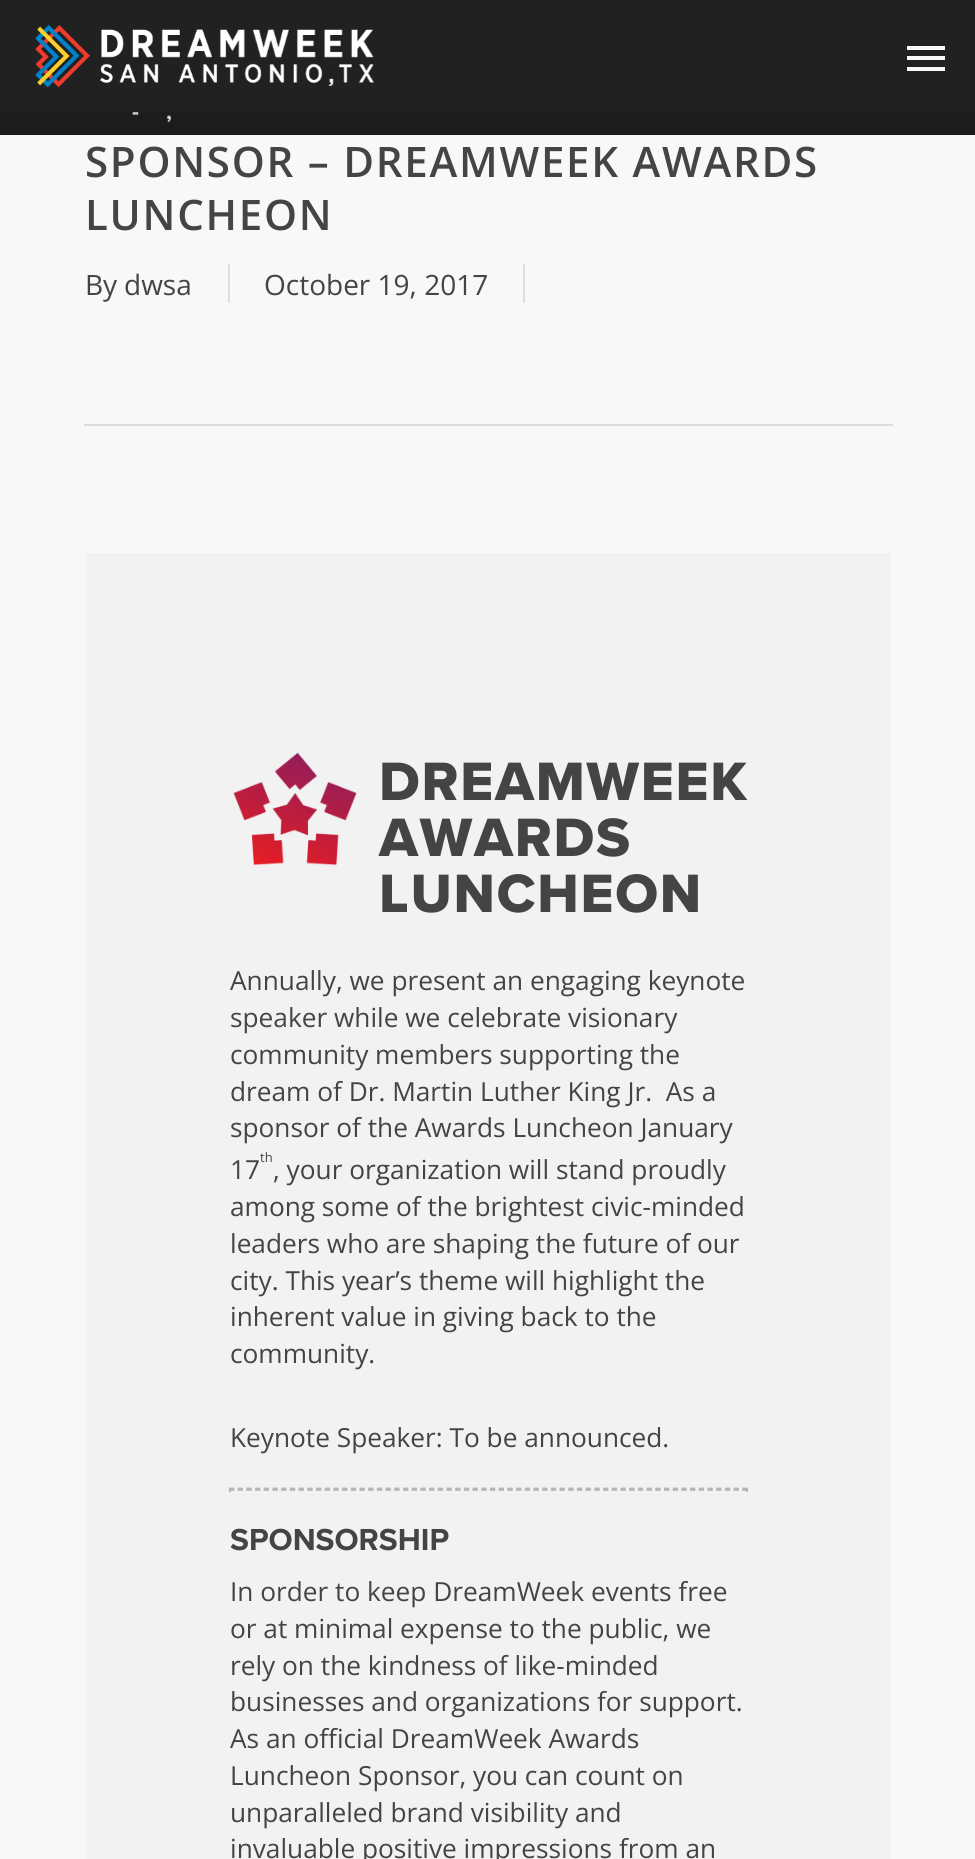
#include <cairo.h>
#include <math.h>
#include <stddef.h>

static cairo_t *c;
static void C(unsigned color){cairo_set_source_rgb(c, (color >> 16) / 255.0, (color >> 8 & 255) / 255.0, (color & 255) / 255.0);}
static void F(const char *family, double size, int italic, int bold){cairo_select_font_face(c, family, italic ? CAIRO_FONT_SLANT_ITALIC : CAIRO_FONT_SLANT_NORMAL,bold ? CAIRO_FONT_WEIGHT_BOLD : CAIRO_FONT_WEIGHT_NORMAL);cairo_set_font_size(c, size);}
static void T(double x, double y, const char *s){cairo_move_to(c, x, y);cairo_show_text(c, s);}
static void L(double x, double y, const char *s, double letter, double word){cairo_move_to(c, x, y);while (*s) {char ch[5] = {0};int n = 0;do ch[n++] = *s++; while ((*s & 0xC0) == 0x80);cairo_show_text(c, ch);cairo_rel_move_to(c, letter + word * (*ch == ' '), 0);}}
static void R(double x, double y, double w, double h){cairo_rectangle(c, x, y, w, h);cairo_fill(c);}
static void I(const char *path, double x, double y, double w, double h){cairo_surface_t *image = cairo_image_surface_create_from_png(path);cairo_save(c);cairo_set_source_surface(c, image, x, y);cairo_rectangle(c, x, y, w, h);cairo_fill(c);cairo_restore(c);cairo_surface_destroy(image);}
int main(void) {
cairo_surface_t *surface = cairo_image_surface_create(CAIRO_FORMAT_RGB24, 975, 1859);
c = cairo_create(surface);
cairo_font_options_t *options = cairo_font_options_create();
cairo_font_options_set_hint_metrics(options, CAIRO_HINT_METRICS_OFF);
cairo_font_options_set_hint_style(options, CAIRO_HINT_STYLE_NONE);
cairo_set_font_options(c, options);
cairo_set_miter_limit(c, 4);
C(0xf8f8f8);
cairo_paint(c);
C(0x212121);
R(0,0,975,112);
I("1.png",35,24,339,64);
C(0xf9f9f9);
R(907,46,38,4);
R(907,67,38,4);
R(907,56,38,4);
C(0x1c1c1c);
R(0,112,975,23);
F("Proxima Nova",23,0,1);
C(0xcecece);
L(132,119,"-",1.75,0);
L(166,119,",",1.75,0);
C(0xdddddd);
R(84,424,809,2);
F("Open Sans SemiBold",42,0,0);
C(0x444444);
L(85,177,"SPONSOR – DREAMWEEK AWARDS",1.75,0);
L(85,230,"LUNCHEON",1.75,0);
F("Open Sans",28,0,0);
T(85,295,"By");
T(124,295,"dwsa");
T(264,295,"October 19, 2017");
C(0xdfdfdf);
R(228,264,2,39);
R(523,264,2,39);
C(0xf2f2f2);
R(86,553,805,1306);
I("2.png",233,752,124,114);
F("Proxima Nova ExtraBold",56,0,0);
C(0x444444);
L(379,800,"DREAMWEEK",1.75,0);
L(379,856,"AWARDS",1.75,0);
L(379,912,"LUNCHEON",1.75,0);
F("Open Sans",26.25,0,0);
T(230,990,"Annually, we present an engaging keynote");
T(230,1027,"speaker while we celebrate visionary");
T(230,1064,"community members supporting the");
T(230,1101,"dream of Dr. Martin Luther King Jr.  As a");
T(230,1137,"sponsor of the Awards Luncheon January");
F("Open Sans",13,0,0);
T(260,1162,"th");
F("Open Sans",26.25,0,0);
T(230,1179,"17");
T(273,1179,", your organization will stand proudly");
T(230,1216,"among some of the brightest civic-minded");
T(230,1253,"leaders who are shaping the future of our");
T(230,1290,"city. This year’s theme will highlight the");
T(230,1326,"inherent value in giving back to the");
T(230,1363,"community.");
T(230,1447,"Keynote Speaker: To be announced.");
cairo_new_path(c);
cairo_move_to(c,229,1488.5);
cairo_line_to(c,747,1488.5);
C(0xb6b6b6);
cairo_set_line_width(c,1.8);
cairo_set_dash(c,(double[]){5.25,3.45},2,0);
cairo_stroke(c);
R(746,1488,2,4);
cairo_new_path(c);
cairo_move_to(c,229,1490);
cairo_line_to(c,747,1490);
cairo_stroke(c);
R(229,1488,2,4);
F("Proxima Nova",31.5,0,1);
C(0x444444);
T(230,1550,"SPONSORSHIP");
F("Open Sans",26.25,0,0);
T(230,1601,"In order to keep DreamWeek events free");
T(230,1638,"or at minimal expense to the public, we");
T(230,1675,"rely on the kindness of like-minded");
T(230,1711,"businesses and organizations for support.");
T(230,1748,"As an official DreamWeek Awards");
T(230,1785,"Luncheon Sponsor, you can count on");
T(230,1822,"unparalleled brand visibility and");
T(230,1858,"invaluable positive impressions from an");
cairo_surface_write_to_png(surface, "o.png");
cairo_font_options_destroy(options);
cairo_destroy(c);
cairo_surface_destroy(surface);
return 0;
}
